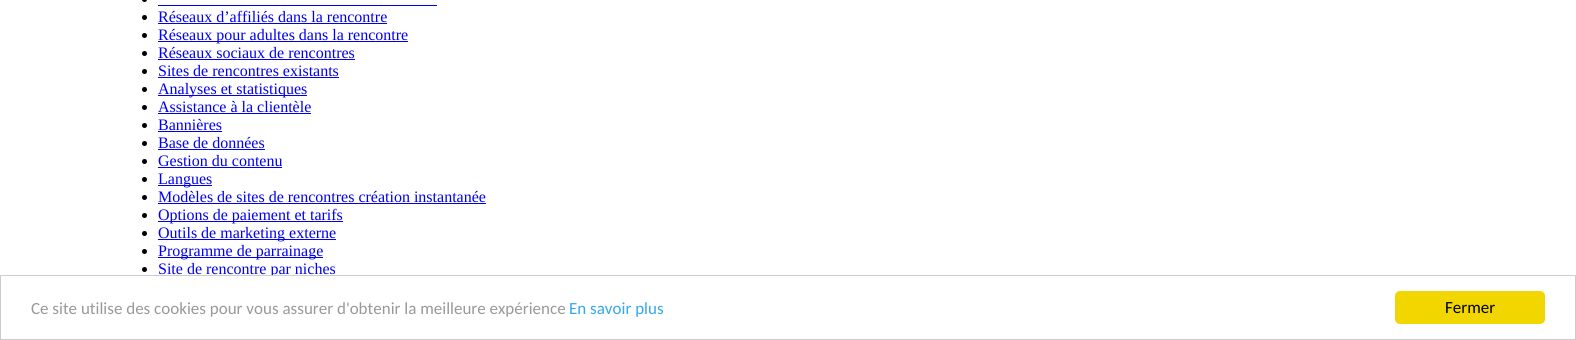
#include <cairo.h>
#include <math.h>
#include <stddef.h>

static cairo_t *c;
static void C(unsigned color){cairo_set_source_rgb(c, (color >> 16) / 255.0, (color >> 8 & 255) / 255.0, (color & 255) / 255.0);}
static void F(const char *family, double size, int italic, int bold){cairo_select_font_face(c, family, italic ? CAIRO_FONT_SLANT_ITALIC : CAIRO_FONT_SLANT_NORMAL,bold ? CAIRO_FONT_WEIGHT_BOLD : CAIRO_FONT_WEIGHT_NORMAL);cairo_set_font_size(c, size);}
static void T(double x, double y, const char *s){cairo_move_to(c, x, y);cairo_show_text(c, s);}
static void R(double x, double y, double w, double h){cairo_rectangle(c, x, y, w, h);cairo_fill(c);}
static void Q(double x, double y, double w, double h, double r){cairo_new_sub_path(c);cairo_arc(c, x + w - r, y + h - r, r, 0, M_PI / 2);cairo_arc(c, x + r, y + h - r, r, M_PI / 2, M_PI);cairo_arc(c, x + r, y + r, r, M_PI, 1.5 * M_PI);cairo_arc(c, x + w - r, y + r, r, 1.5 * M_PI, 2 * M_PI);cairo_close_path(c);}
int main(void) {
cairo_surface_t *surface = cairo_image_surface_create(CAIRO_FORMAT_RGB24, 1576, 340);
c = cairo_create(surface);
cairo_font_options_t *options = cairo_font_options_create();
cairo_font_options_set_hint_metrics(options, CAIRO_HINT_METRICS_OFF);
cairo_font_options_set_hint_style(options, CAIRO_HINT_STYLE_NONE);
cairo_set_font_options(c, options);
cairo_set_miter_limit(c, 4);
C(0xffffff);
cairo_paint(c);
C(0x000000);
cairo_arc(c,144.5,-.5,2.5,0,2 * M_PI);
cairo_fill(c);
C(0x0000ee);
R(158,5,279,1);
C(0x000000);
cairo_arc(c,144.5,17.5,2.5,0,2 * M_PI);
cairo_fill(c);
F("Liberation Serif",16,0,0);
C(0x0000ee);
T(158,22,"Réseaux d’affiliés dans la rencontre");
R(158,23,229,1);
C(0x000000);
cairo_new_path(c);
cairo_arc(c,144.5,35.5,2.5,0,2 * M_PI);
cairo_fill(c);
C(0x0000ee);
R(158,41,250,1);
T(158,40,"Réseaux pour adultes dans la rencontre");
C(0x000000);
cairo_new_path(c);
cairo_arc(c,144.5,53.5,2.5,0,2 * M_PI);
cairo_fill(c);
C(0x0000ee);
T(158,58,"Réseaux sociaux de rencontres");
R(158,59,197,1);
C(0x000000);
cairo_new_path(c);
cairo_arc(c,144.5,71.5,2.5,0,2 * M_PI);
cairo_fill(c);
C(0x0000ee);
T(158,76,"Sites de rencontres existants");
R(158,77,181,1);
C(0x000000);
cairo_new_path(c);
cairo_arc(c,144.5,89.5,2.5,0,2 * M_PI);
cairo_fill(c);
C(0x0000ee);
R(158,95,149,1);
T(158,94,"Analyses et statistiques");
C(0x000000);
cairo_new_path(c);
cairo_arc(c,144.5,107.5,2.5,0,2 * M_PI);
cairo_fill(c);
C(0x0000ee);
T(158,112,"Assistance à la clientèle");
R(158,113,153,1);
C(0x000000);
cairo_new_path(c);
cairo_arc(c,144.5,125.5,2.5,0,2 * M_PI);
cairo_fill(c);
C(0x0000ee);
T(158,130,"Bannières");
R(158,131,64,1);
C(0x000000);
cairo_new_path(c);
cairo_arc(c,144.5,143.5,2.5,0,2 * M_PI);
cairo_fill(c);
C(0x0000ee);
T(158,148,"Base de données");
R(158,149,107,1);
C(0x000000);
cairo_new_path(c);
cairo_arc(c,144.5,161.5,2.5,0,2 * M_PI);
cairo_fill(c);
C(0x0000ee);
T(158,166,"Gestion du contenu");
R(158,167,124,1);
C(0x000000);
cairo_new_path(c);
cairo_arc(c,144.5,179.5,2.5,0,2 * M_PI);
cairo_fill(c);
C(0x0000ee);
R(158,185,54,1);
T(158,184,"Langues");
C(0x000000);
cairo_new_path(c);
cairo_arc(c,144.5,197.5,2.5,0,2 * M_PI);
cairo_fill(c);
C(0x0000ee);
T(158,202,"Modèles de sites de rencontres création instantanée");
R(158,203,328,1);
C(0x000000);
cairo_new_path(c);
cairo_arc(c,144.5,215.5,2.5,0,2 * M_PI);
cairo_fill(c);
C(0x0000ee);
R(158,221,185,1);
T(158,220,"Options de paiement et tarifs");
C(0x000000);
cairo_new_path(c);
cairo_arc(c,144.5,233.5,2.5,0,2 * M_PI);
cairo_fill(c);
C(0x0000ee);
R(158,239,178,1);
T(158,238,"Outils de marketing externe");
C(0x000000);
cairo_new_path(c);
cairo_arc(c,144.5,251.5,2.5,0,2 * M_PI);
cairo_fill(c);
C(0x0000ee);
R(158,257,165,1);
T(158,256,"Programme de parrainage");
C(0x000000);
cairo_new_path(c);
cairo_arc(c,144.5,269.5,2.5,0,2 * M_PI);
cairo_fill(c);
C(0x0000ee);
T(158,274,"Site de rencontre par niches");
C(0xffffff);
R(270,276,5,2);
cairo_rectangle(c,.5,275.5,1575,64);
C(0xcccccc);
cairo_set_line_width(c,1);
cairo_stroke(c);
F("Carlito",17,0,0);
C(0x999999);
T(31,314,"Ce site utilise des cookies pour vous assurer d'obtenir la meilleure expérience");
C(0x31a8f0);
T(569,314,"En savoir plus");
C(0xf1d600);
Q(1395,291,150,33,5);
cairo_fill(c);
C(0x000000);
T(1445,313,"Fermer");
cairo_surface_write_to_png(surface, "o.png");
cairo_font_options_destroy(options);
cairo_destroy(c);
cairo_surface_destroy(surface);
return 0;
}
